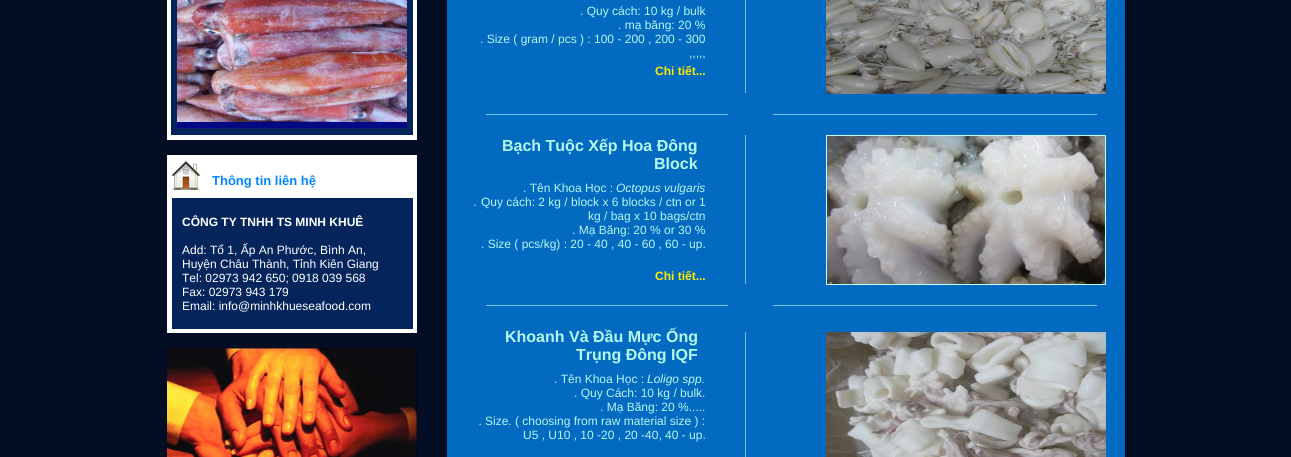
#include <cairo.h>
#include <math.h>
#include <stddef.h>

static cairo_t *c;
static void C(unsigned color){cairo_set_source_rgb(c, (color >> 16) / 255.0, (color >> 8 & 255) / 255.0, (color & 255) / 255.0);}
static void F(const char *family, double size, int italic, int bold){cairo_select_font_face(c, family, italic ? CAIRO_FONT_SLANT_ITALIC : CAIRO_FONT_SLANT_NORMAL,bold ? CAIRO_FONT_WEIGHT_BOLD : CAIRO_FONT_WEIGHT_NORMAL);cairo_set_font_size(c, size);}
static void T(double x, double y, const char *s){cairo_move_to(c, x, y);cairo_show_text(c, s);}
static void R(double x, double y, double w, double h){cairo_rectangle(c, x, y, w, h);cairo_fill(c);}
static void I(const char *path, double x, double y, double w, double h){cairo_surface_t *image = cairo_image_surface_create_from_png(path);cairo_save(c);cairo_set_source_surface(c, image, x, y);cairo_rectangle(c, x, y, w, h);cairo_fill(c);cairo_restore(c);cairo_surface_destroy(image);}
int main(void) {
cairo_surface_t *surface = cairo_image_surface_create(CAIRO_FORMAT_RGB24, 1291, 457);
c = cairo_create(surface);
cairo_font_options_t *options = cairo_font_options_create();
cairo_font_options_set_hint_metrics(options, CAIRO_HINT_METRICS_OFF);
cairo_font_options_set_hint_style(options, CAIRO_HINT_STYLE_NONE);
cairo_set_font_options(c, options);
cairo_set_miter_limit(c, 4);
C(0x030e24);
cairo_paint(c);
I("1.png",167,0,250,140);
C(0x010985);
R(177,122,230,6);
I("2.png",177,0,230,122);
C(0xffffff);
R(171,135,242,5);
I("3.png",167,155,250,178);
I("4.png",171,155,242,43);
F("Liberation Sans",13,0,1);
C(0x0285ff);
T(212,185,"Thông tin liên hệ");
F("Liberation Sans",12,0,1);
C(0xffffff);
T(182,226,"CÔNG TY TNHH TS MINH KHUÊ");
F("Liberation Sans",12,0,0);
T(182,254,"Add: Tổ 1, Ấp An Phước, Bình An,");
T(182,268,"Huyện Châu Thành, Tỉnh Kiên Giang");
T(182,282,"Tel: 02973 942 650; 0918 039 568");
T(182,296,"Fax: 02973 943 179");
T(182,310,"Email: info@minhkhueseafood.com");
R(172,329,241,4);
I("5.png",167,348,250,109);
C(0x036ac1);
R(447,0,678,457);
C(0xb4f8f2);
T(580,15,". Quy cách: 10 kg / bulk");
T(618,29,". mạ băng: 20 %");
T(480,43,". Size ( gram / pcs ) : 100 - 200 , 200 - 300");
T(689,57,",,,,,");
F("Liberation Sans",12,0,1);
C(0xffea00);
T(655,75,"Chi tiết...");
C(0x7ac1e6);
R(745,0,1,93);
I("6.png",826,0,280,94);
I("7.png",486,114,611,1);
F("Liberation Sans",16,0,1);
C(0xb4f8f2);
T(502,151,"Bạch Tuộc Xếp Hoa Đông");
T(654,169,"Block");
F("Liberation Sans",12,0,0);
T(523,192,". Tên Khoa Học :");
F("Liberation Sans",12,1,0);
T(616,192,"Octopus vulgaris");
T(474,206,".");
F("Liberation Sans",12,0,0);
T(481,206,"Quy cách: 2 kg / block x 6 blocks / ctn or 1");
T(588,220,"kg / bag x 10 bags/ctn");
T(572,234,". Mạ Băng: 20 % or 30 %");
T(481,248,". Size ( pcs/kg) : 20 - 40 , 40 - 60 , 60 - up.");
F("Liberation Sans",12,0,1);
C(0xffea00);
T(655,280,"Chi tiết...");
C(0x7ac1e6);
R(745,135,1,149);
I("8.png",826,135,280,150);
I("7.png",486,305,611,1);
F("Liberation Sans",16,0,1);
C(0xb4f8f2);
T(505,342,"Khoanh Và Đầu Mực Ống");
T(576,360,"Trụng Đông IQF");
F("Liberation Sans",12,0,0);
T(554,383,". Tên Khoa Học :");
F("Liberation Sans",12,1,0);
T(647,383,"Loligo spp.");
F("Liberation Sans",12,0,0);
T(574,397,". Quy Cách: 10 kg / bulk.");
T(600,411,". Mạ Băng: 20 %.....");
F("Liberation Sans",12,1,0);
T(479,425,".");
F("Liberation Sans",12,0,0);
T(485,425,"Size. ( choosing from raw material size ) :");
T(523,439,"U5 , U10 , 10 -20 , 20 -40, 40 - up.");
C(0x7ac1e6);
R(745,332,1,125);
I("9.png",826,332,280,125);
cairo_surface_write_to_png(surface, "o.png");
cairo_font_options_destroy(options);
cairo_destroy(c);
cairo_surface_destroy(surface);
return 0;
}
